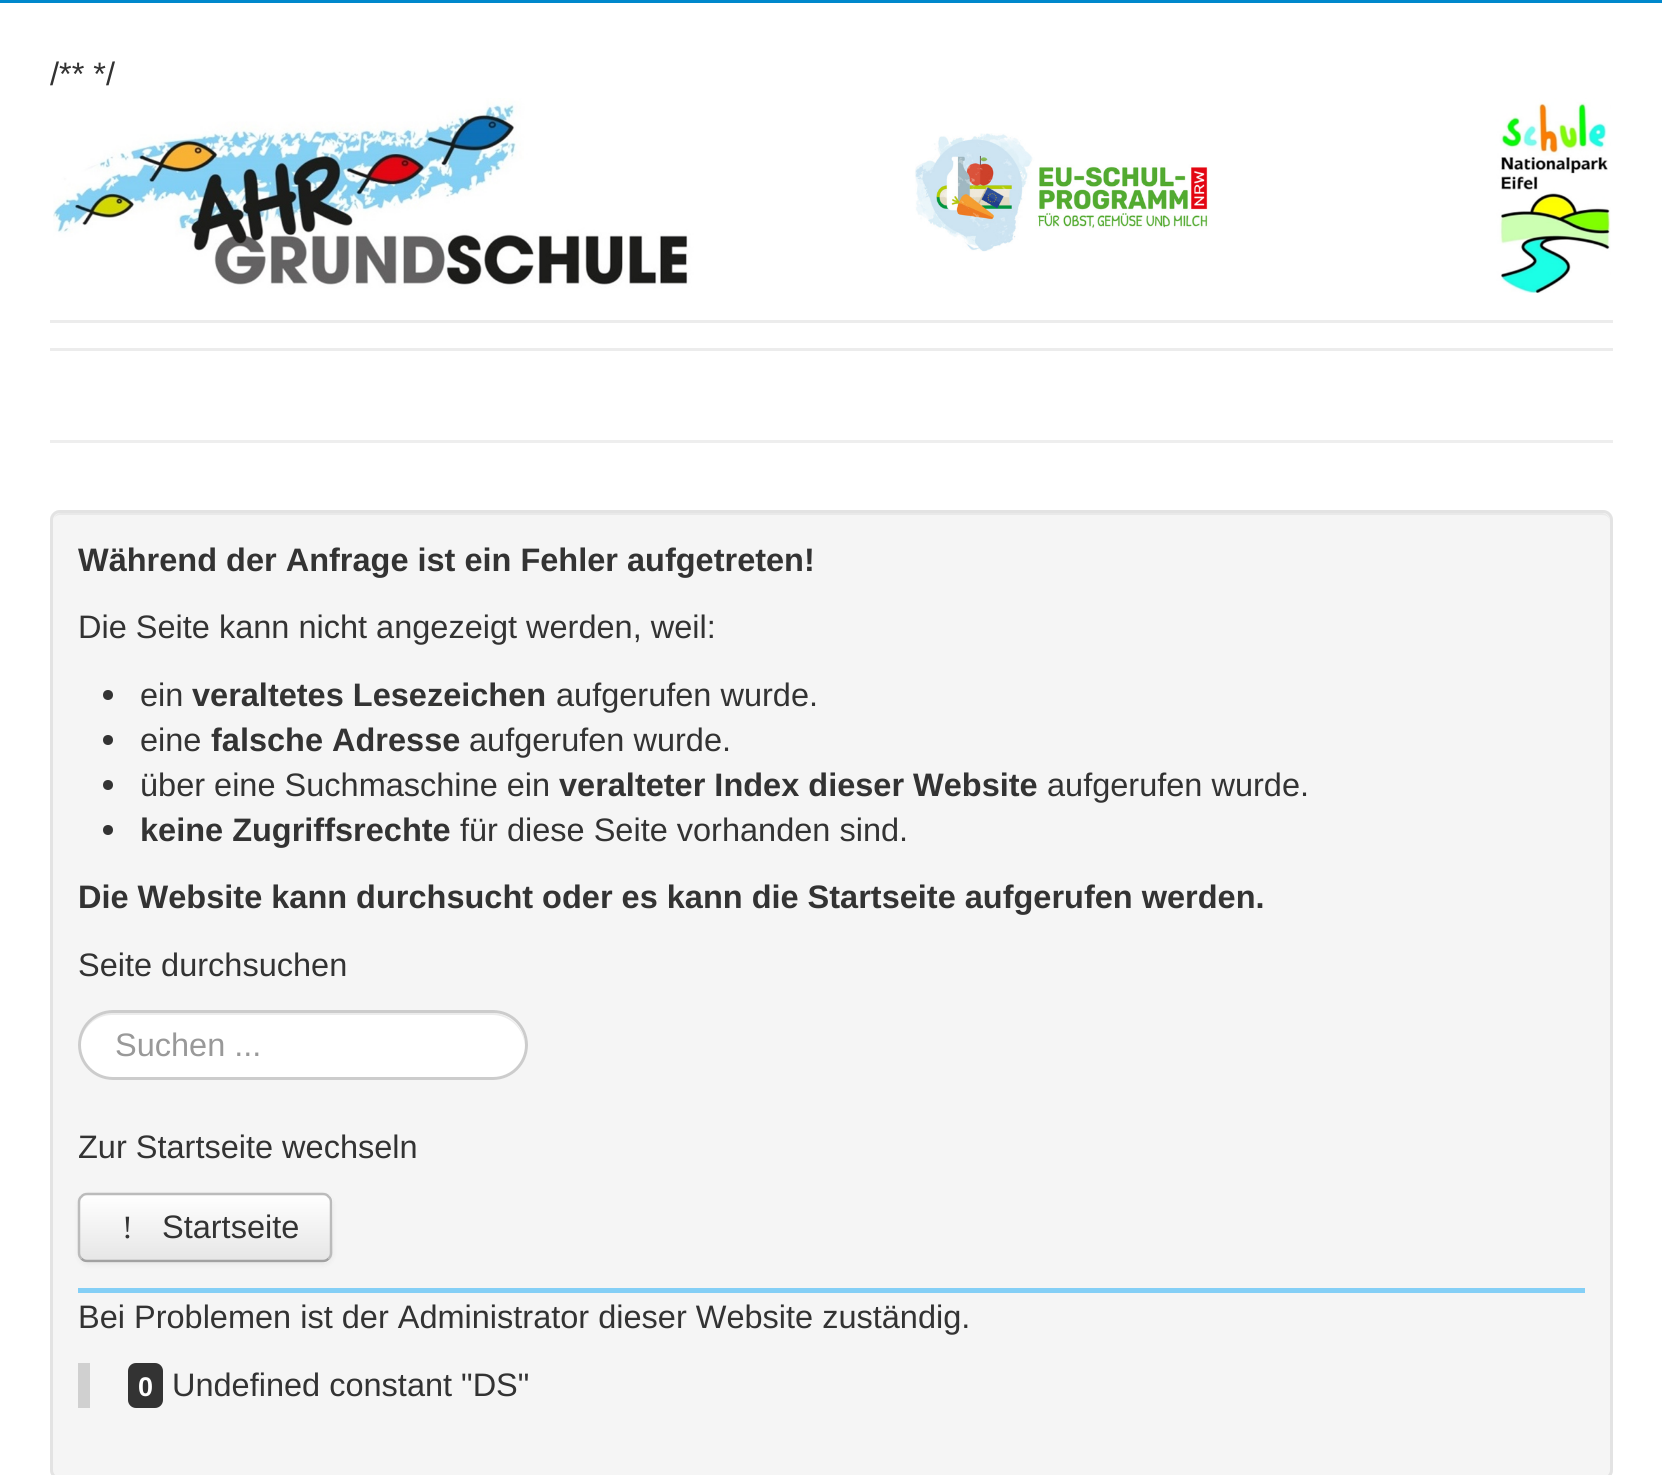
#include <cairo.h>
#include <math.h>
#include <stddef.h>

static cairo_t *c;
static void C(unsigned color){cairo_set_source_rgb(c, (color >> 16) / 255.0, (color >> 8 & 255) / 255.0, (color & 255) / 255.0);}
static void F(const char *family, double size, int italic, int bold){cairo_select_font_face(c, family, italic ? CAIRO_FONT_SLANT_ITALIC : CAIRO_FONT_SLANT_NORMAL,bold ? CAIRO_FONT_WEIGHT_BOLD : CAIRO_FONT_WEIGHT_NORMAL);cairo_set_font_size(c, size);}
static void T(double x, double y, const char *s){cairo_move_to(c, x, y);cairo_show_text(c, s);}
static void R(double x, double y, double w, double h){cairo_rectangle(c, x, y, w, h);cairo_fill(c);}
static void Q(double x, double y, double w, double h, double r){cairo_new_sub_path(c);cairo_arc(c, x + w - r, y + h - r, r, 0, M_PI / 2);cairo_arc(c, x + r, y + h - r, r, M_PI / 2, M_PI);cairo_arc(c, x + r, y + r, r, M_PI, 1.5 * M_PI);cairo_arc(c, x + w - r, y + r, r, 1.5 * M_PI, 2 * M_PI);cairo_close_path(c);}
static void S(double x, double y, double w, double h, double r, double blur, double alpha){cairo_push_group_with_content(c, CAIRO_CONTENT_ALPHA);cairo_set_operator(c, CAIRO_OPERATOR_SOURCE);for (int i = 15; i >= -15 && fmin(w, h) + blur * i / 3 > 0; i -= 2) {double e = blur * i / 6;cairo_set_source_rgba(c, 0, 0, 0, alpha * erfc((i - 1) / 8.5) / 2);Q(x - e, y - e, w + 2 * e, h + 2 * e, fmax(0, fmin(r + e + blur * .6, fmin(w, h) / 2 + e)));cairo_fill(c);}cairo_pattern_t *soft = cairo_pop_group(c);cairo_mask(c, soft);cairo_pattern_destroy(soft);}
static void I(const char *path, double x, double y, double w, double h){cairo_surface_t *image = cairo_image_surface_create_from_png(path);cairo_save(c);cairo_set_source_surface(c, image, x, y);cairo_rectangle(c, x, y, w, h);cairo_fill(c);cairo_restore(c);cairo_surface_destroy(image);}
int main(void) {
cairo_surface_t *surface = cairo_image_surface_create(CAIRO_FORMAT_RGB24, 1662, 1475);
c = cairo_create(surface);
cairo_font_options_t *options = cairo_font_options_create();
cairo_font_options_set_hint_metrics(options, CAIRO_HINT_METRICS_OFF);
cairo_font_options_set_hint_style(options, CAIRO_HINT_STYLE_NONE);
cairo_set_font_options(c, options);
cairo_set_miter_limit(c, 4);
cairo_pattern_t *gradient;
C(0xffffff);
cairo_paint(c);
C(0x0088cc);
R(0,0,1662,3);
F("Liberation Sans",32.5,0,0);
C(0x333333);
T(50,85,"/** */");
I("1.png",53,98,1558,195);
C(0xececec);
R(50,320,1563,3);
R(50,348,1563,3);
C(0xeeeeee);
R(50,440,1563,3);
C(0xf5f5f5);
Q(50,510,1563,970,10);
cairo_fill(c);
C(0xe9e9e9);
cairo_new_path(c);
cairo_move_to(c,60,515);
cairo_line_to(c,1602,515);
cairo_curve_to(c,1607,515,1610,518,1610,522);
cairo_line_to(c,1610,521);
cairo_curve_to(c,1610,517,1606,513,1602,513);
cairo_line_to(c,61,513);
cairo_curve_to(c,58,513,55,515,54,518);
cairo_curve_to(c,55,516,58,515,60,515);
cairo_close_path(c);
cairo_fill(c);
Q(51.5,511.5,1560,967,8.5);
C(0xe3e3e3);
cairo_set_line_width(c,3);
cairo_stroke(c);
F("Liberation Sans",32.5,0,1);
C(0x333333);
T(78,571,"Während der Anfrage ist ein Fehler aufgetreten!");
F("Liberation Sans",32.5,0,0);
T(78,638,"Die Seite kann nicht angezeigt werden, weil:");
cairo_new_path(c);
cairo_arc(c,108,695,5,0,2 * M_PI);
cairo_fill(c);
T(140,706,"ein");
F("Liberation Sans",32.5,0,1);
T(192,706,"veraltetes Lesezeichen");
F("Liberation Sans",32.5,0,0);
T(556,706,"aufgerufen wurde.");
cairo_new_path(c);
cairo_arc(c,108,740,5,0,2 * M_PI);
cairo_fill(c);
T(140,751,"eine");
F("Liberation Sans",32.5,0,1);
T(211,751,"falsche Adresse");
F("Liberation Sans",32.5,0,0);
T(469,751,"aufgerufen wurde.");
cairo_new_path(c);
cairo_arc(c,108,785,5,0,2 * M_PI);
cairo_fill(c);
T(140,796,"über eine Suchmaschine ein");
F("Liberation Sans",32.5,0,1);
T(559,796,"veralteter Index dieser Website");
F("Liberation Sans",32.5,0,0);
T(1047,796,"aufgerufen wurde.");
cairo_new_path(c);
cairo_arc(c,108,830,5,0,2 * M_PI);
cairo_fill(c);
F("Liberation Sans",32.5,0,1);
T(140,841,"keine Zugriffsrechte");
F("Liberation Sans",32.5,0,0);
T(460,841,"für diese Seite vorhanden sind.");
F("Liberation Sans",32.5,0,1);
T(78,908,"Die Website kann durchsucht oder es kann die Startseite aufgerufen werden.");
F("Liberation Sans",32.5,0,0);
T(78,976,"Seite durchsuchen");
C(0xffffff);
Q(78,1010,450,70,35);
cairo_fill(c);
C(0xececec);
cairo_new_path(c);
cairo_move_to(c,112,1015);
cairo_line_to(c,492,1015);
cairo_curve_to(c,510,1015,524,1029,525,1047);
cairo_line_to(c,525,1046);
cairo_curve_to(c,525,1028,510,1013,492,1013);
cairo_line_to(c,112,1013);
cairo_curve_to(c,95,1013,80,1028,80,1046);
cairo_line_to(c,80,1047);
cairo_curve_to(c,81,1029,95,1015,112,1015);
cairo_close_path(c);
cairo_fill(c);
Q(79.5,1011.5,447,67,33.5);
C(0xcccccc);
cairo_stroke(c);
C(0x999999);
T(115,1056,"Suchen ...");
C(0x333333);
T(78,1158,"Zur Startseite wechseln");
C(0x000000);
S(78,1195,255,70,10,2.5,.05);
C(0xf5f5f5);
Q(78,1193,255,70,10);
cairo_fill(c);
cairo_save(c);
Q(78,1193,255,70,10);
cairo_clip(c);
gradient = cairo_pattern_create_linear(205,1195,205,1260);
cairo_pattern_add_color_stop_rgba(gradient,0,1,1,1,1);
cairo_pattern_add_color_stop_rgba(gradient,1,0.902,0.902,0.902,1);
cairo_set_source(c,gradient);
cairo_pattern_destroy(gradient);
R(78,1195,255,65);
cairo_restore(c);
cairo_new_path(c);
cairo_move_to(c,328.5,1258.5);
cairo_curve_to(c,327,1260.5,325,1261,322.5,1261);
cairo_line_to(c,87.5,1261);
cairo_curve_to(c,85,1261,83,1260.5,81.5,1258.5);
C(0xa2a2a2);
cairo_set_line_width(c,2.5);
cairo_stroke(c);
cairo_new_path(c);
cairo_move_to(c,81.5,1258.5);
cairo_curve_to(c,79.5,1257,79,1255,79,1252.5);
cairo_line_to(c,79,1202.5);
cairo_curve_to(c,79,1200,79.5,1198,81.5,1196.5);
cairo_curve_to(c,83,1194.5,85,1194,87.5,1194);
cairo_line_to(c,322.5,1194);
cairo_curve_to(c,325,1194,327,1194.5,328.5,1196.5);
cairo_curve_to(c,330.5,1198,331,1200,331,1202.5);
cairo_line_to(c,331,1252.5);
cairo_curve_to(c,331,1255,330.5,1257,328.5,1258.5);
C(0xbbbbbb);
cairo_stroke(c);
F("Liberation Serif",32.5,0,0);
C(0x333333);
T(122,1238,"!");
F("Liberation Sans",32.5,0,0);
T(162,1238,"Startseite");
C(0x84cff6);
R(78,1288,1507,5);
C(0x333333);
T(78,1328,"Bei Problemen ist der Administrator dieser Website zuständig.");
C(0xd0d0d0);
R(78,1363,12,45);
C(0x333333);
Q(128,1363,35,45,8);
cairo_fill(c);
F("Liberation Sans",27,0,1);
C(0xffffff);
T(138,1396,"0");
F("Liberation Sans",32.5,0,0);
C(0x333333);
T(172,1396,"Undefined constant \"DS\"");
cairo_surface_write_to_png(surface, "o.png");
cairo_font_options_destroy(options);
cairo_destroy(c);
cairo_surface_destroy(surface);
return 0;
}
